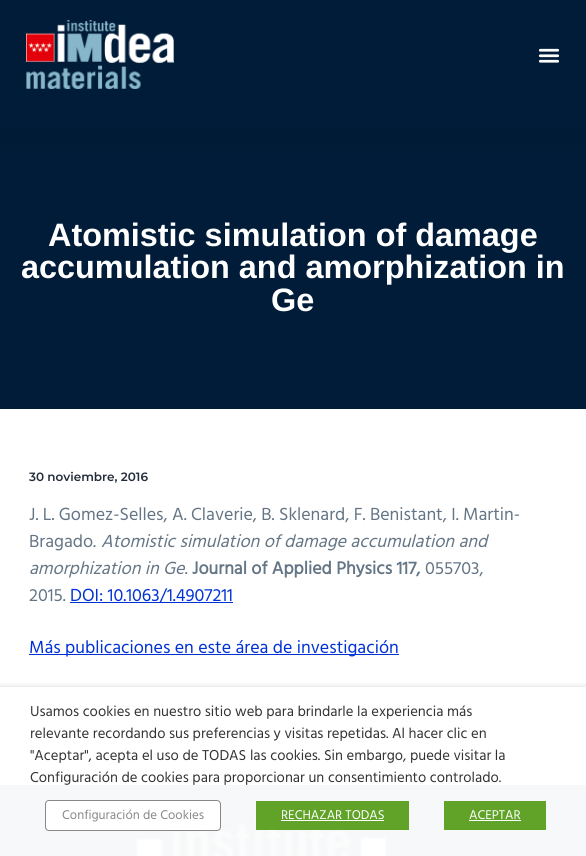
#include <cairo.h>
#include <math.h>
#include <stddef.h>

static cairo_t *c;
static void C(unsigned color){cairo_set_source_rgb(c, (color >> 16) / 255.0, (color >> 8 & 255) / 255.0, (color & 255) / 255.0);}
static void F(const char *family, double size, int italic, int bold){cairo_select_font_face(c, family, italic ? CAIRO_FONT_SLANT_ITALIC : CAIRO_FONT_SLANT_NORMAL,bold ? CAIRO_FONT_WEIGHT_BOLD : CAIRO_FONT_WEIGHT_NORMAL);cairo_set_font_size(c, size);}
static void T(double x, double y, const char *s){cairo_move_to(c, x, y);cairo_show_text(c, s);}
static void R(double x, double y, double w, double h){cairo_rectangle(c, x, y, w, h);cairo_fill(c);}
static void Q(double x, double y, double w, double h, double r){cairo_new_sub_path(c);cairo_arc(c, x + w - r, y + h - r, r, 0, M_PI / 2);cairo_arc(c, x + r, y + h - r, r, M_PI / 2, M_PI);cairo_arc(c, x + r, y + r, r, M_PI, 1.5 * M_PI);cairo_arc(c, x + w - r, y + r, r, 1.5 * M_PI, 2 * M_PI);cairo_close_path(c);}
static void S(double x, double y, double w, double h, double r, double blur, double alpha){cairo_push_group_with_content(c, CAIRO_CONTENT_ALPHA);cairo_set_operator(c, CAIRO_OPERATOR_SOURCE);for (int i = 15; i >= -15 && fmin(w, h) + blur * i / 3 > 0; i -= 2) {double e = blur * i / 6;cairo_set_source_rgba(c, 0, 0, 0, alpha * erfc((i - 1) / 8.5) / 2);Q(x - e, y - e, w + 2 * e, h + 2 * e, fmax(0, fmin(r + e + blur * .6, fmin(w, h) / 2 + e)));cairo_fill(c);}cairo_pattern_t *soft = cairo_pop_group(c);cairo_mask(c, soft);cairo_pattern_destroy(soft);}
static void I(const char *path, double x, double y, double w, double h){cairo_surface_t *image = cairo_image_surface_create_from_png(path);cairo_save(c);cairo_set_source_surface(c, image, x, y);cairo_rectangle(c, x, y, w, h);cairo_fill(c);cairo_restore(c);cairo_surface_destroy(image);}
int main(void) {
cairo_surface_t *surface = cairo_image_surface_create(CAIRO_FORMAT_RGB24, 586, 856);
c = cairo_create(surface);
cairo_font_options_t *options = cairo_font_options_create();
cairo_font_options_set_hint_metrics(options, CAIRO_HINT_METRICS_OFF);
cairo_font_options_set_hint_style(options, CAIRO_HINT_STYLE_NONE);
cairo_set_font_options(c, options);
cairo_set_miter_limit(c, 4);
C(0xffffff);
cairo_paint(c);
C(0x001c38);
R(0,129,586,280);
C(0x000000);
S(0,0,586,129,0,19,.1);
C(0x001c38);
R(0,0,586,129);
I("1.png",26,20,148,69);
I("2.png",538,48,22,15);
F("Liberation Sans",32.4,0,1);
C(0xffffff);
T(48,246,"Atomistic simulation of damage");
T(21,278,"accumulation and amorphization in");
T(271,311,"Ge");
F("Montserrat Thin",12,0,0);
C(0x232c39);
T(29,481,"30 noviembre, 2016");
F("Hind",18,0,0);
C(0x647585);
T(29,520,"J. L. Gomez-Selles, A. Claverie, B. Sklenard, F. Benistant, I. Martin-");
T(29,547,"Bragado.");
F("Hind",18,1,0);
T(101,547,"Atomistic simulation of damage accumulation and");
T(29,574,"amorphization in Ge.");
F("Hind",18,0,1);
T(192,574,"Journal of Applied Physics 117,");
F("Hind",18,0,0);
T(425,574,"055703,");
T(29,601,"2015.");
C(0x0031d5);
R(70,602,163,1);
T(70,601,"DOI: 10.1063/1.4907211");
R(29,654,370,1);
T(29,653,"Más publicaciones en este área de investigación");
C(0xf7f9fe);
R(104,706,50,1);
C(0xf7f8f9);
R(0,785,586,71);
I("3.png",136,820,252,36);
cairo_save(c);
cairo_rectangle(c,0,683,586,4);
cairo_clip(c);
C(0x000000);
S(0,692,586,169,0,5,.5);
cairo_restore(c);
F("Hind",14.7,0,0);
C(0x333333);
T(30,716,"Usamos cookies en nuestro sitio web para brindarle la experiencia más");
T(30,738,"relevante recordando sus preferencias y visitas repetidas. Al hacer clic en");
T(30,760,"\"Aceptar\", acepta el uso de TODAS las cookies. Sin embargo, puede visitar la");
T(30,782,"Configuración de cookies para proporcionar un consentimiento controlado.");
C(0xffffff);
Q(45.5,800.5,175,30,3.5);
cairo_fill_preserve(c);
C(0x898888);
cairo_set_line_width(c,1);
cairo_stroke(c);
F("Hind",13,0,0);
T(62,819,"Configuración de Cookies");
C(0x61a229);
R(256,801,153,29);
C(0xffffff);
T(281,819,"RECHAZAR TODAS");
R(281,820,103,1);
C(0x61a229);
R(444,801,102,29);
C(0xffffff);
T(469,819,"ACEPTAR");
R(469,820,52,1);
cairo_surface_write_to_png(surface, "o.png");
cairo_font_options_destroy(options);
cairo_destroy(c);
cairo_surface_destroy(surface);
return 0;
}
